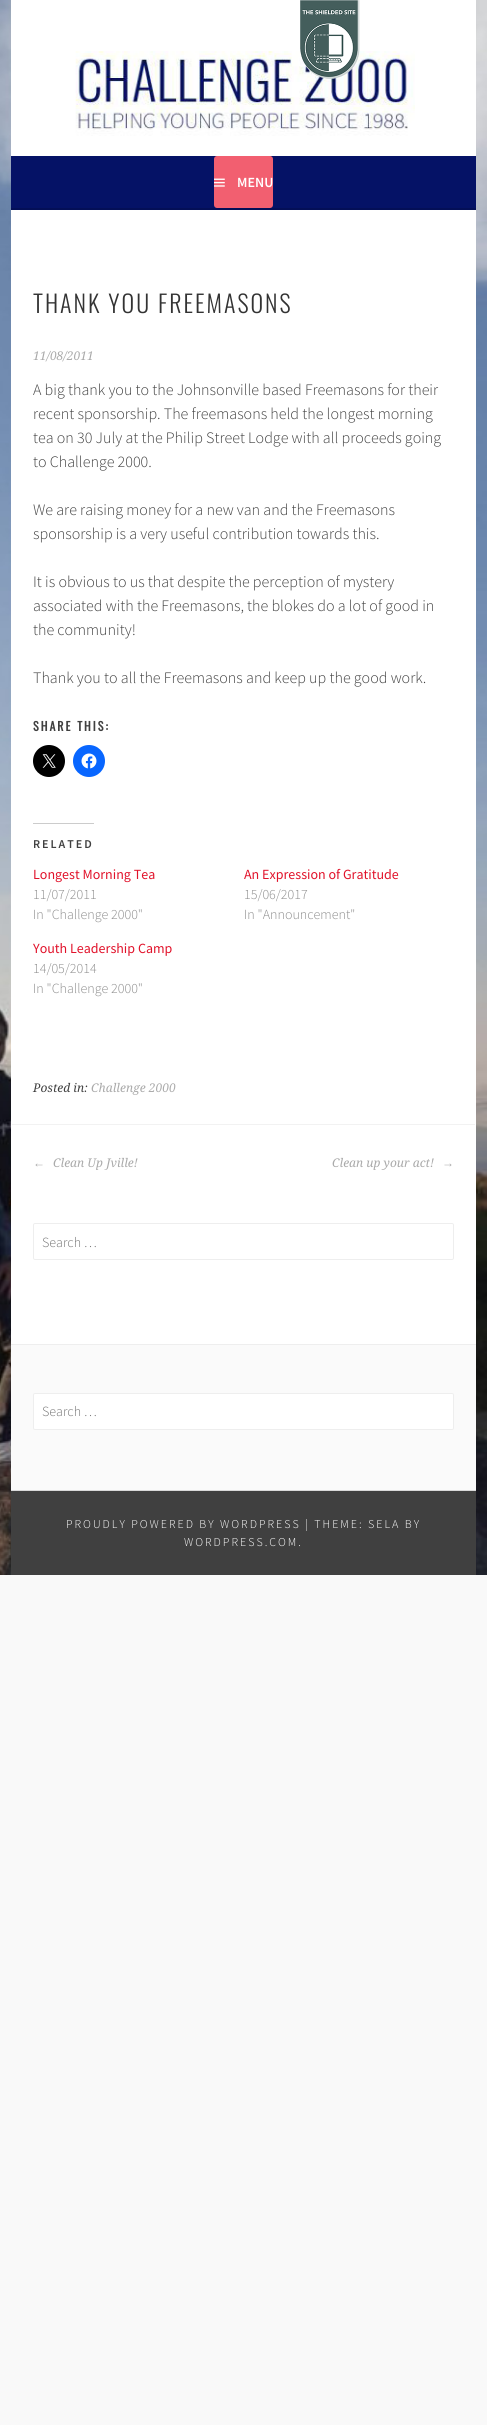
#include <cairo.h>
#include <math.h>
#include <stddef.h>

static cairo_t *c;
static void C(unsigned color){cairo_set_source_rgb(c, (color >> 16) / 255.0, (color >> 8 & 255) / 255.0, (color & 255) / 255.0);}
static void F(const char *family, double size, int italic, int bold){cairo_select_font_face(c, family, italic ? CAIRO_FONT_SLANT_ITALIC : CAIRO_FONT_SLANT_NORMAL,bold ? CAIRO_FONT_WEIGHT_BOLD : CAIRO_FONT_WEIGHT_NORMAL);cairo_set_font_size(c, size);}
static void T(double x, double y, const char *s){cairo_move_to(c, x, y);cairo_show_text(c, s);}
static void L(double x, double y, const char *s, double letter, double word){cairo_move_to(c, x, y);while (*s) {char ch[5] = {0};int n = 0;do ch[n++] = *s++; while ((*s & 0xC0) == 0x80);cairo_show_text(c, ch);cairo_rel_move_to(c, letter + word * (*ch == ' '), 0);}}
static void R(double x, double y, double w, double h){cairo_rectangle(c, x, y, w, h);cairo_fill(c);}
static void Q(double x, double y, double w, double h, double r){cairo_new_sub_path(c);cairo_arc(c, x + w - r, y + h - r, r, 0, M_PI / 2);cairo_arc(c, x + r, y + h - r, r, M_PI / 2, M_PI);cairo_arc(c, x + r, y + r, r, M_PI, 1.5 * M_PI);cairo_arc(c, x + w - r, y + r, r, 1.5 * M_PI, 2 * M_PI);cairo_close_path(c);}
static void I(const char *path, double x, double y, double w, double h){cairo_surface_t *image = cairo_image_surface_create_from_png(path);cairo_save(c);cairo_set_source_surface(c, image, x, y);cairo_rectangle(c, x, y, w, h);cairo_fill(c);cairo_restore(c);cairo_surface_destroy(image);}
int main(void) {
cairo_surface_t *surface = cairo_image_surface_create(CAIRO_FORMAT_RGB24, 487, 2425);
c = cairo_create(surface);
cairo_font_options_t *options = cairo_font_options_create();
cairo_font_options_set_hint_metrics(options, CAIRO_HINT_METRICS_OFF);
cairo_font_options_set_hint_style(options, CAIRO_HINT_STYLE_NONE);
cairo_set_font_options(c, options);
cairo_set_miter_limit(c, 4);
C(0xf9f9f9);
cairo_paint(c);
I("1.png",0,0,487,1575);
C(0xffffff);
R(11,0,465,156);
I("3.png",75,51,340,85);
I("2.png",300,0,60,79);
C(0x051266);
R(11,156,465,52);
C(0x040f57);
R(11,208,465,2);
C(0xf25f70);
Q(214,156,59,52,3);
cairo_fill(c);
I("4.png",214,178,11,9);
F("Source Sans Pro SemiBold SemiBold",14,0,0);
C(0xffffff);
T(237,187,"MENU");
R(11,210,465,1134);
F("Oswald Light",24,0,0);
C(0x333333);
L(33,313,"THANK YOU FREEMASONS",2,0);
F("Droid Serif",12,1,0);
C(0xaaaaaa);
T(33,360,"11/08/2011");
F("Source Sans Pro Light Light",16,0,0);
C(0x404040);
T(33,395,"A big thank you to the Johnsonville based Freemasons for their");
T(33,419,"recent sponsorship. The freemasons held the longest morning");
T(33,443,"tea on 30 July at the Philip Street Lodge with all proceeds going");
T(33,467,"to Challenge 2000.");
T(33,515,"We are raising money for a new van and the Freemasons");
T(33,539,"sponsorship is a very useful contribution towards this.");
T(33,587,"It is obvious to us that despite the perception of mystery");
T(33,611,"associated with the Freemasons, the blokes do a lot of good in");
T(33,635,"the community!");
T(33,683,"Thank you to all the Freemasons and keep up the good work.");
F("Oswald",12,0,1);
L(33,731,"SHARE THIS:",2,0);
C(0x000000);
cairo_new_path(c);
cairo_arc(c,49,761,16,0,2 * M_PI);
cairo_fill(c);
I("5.png",42,754,14,14);
C(0x0866ff);
cairo_arc(c,89,761,16,0,2 * M_PI);
cairo_fill(c);
I("6.png",81,753,16,16);
C(0xcccccc);
R(33,823,61,1);
F("Source Sans Pro SemiBold SemiBold",12,0,0);
C(0x404040);
L(33,848,"RELATED",2,0);
F("Source Sans Pro",14,0,0);
C(0xe1122a);
T(33,879,"Longest Morning Tea");
F("Source Sans Pro Light Light",14,0,0);
C(0x8c8c8c);
T(33,899,"11/07/2011");
T(33,919,"In \"Challenge 2000\"");
F("Source Sans Pro",14,0,0);
C(0xe1122a);
T(244,879,"An Expression of Gratitude");
F("Source Sans Pro Light Light",14,0,0);
C(0x8c8c8c);
T(244,899,"15/06/2017");
T(244,919,"In \"Announcement\"");
F("Source Sans Pro",14,0,0);
C(0xe1122a);
T(33,953,"Youth Leadership Camp");
F("Source Sans Pro Light Light",14,0,0);
C(0x8c8c8c);
T(33,973,"14/05/2014");
T(33,993,"In \"Challenge 2000\"");
F("Droid Serif",12,1,0);
C(0x404040);
T(33,1092,"Posted in:");
C(0xaaaaaa);
T(91,1092,"Challenge 2000");
C(0xf2f2f2);
R(12,1124,463,1);
F("Liberation Serif",12,1,0);
C(0xaaaaaa);
T(33,1167,"←");
F("Droid Serif",12,1,0);
T(53,1167,"Clean Up Jville!");
T(332,1167,"Clean up your act!");
F("Liberation Serif",12,1,0);
T(442,1167,"→");
Q(33.5,1223.5,420,36,1.5);
C(0xeeeeee);
cairo_set_line_width(c,1);
cairo_stroke(c);
F("Source Sans Pro Light Light",14,0,0);
C(0x757575);
T(42,1247,"Search …");
C(0xfafafa);
R(11,1345,465,145);
C(0xeeeeee);
R(11,1344,465,1);
C(0xffffff);
Q(33.5,1393.5,420,36,1.5);
cairo_fill_preserve(c);
C(0xeeeeee);
cairo_stroke(c);
C(0x757575);
T(42,1416,"Search …");
C(0x404040);
R(11,1491,465,84);
C(0xd9d9d9);
R(11,1490,465,1);
F("Source Sans Pro Light Light",12,0,0);
C(0xffffff);
L(66,1528,"PROUDLY POWERED BY WORDPRESS | THEME: SELA BY",2,0);
L(184,1546,"WORDPRESS.COM.",2,0);
cairo_surface_write_to_png(surface, "o.png");
cairo_font_options_destroy(options);
cairo_destroy(c);
cairo_surface_destroy(surface);
return 0;
}
